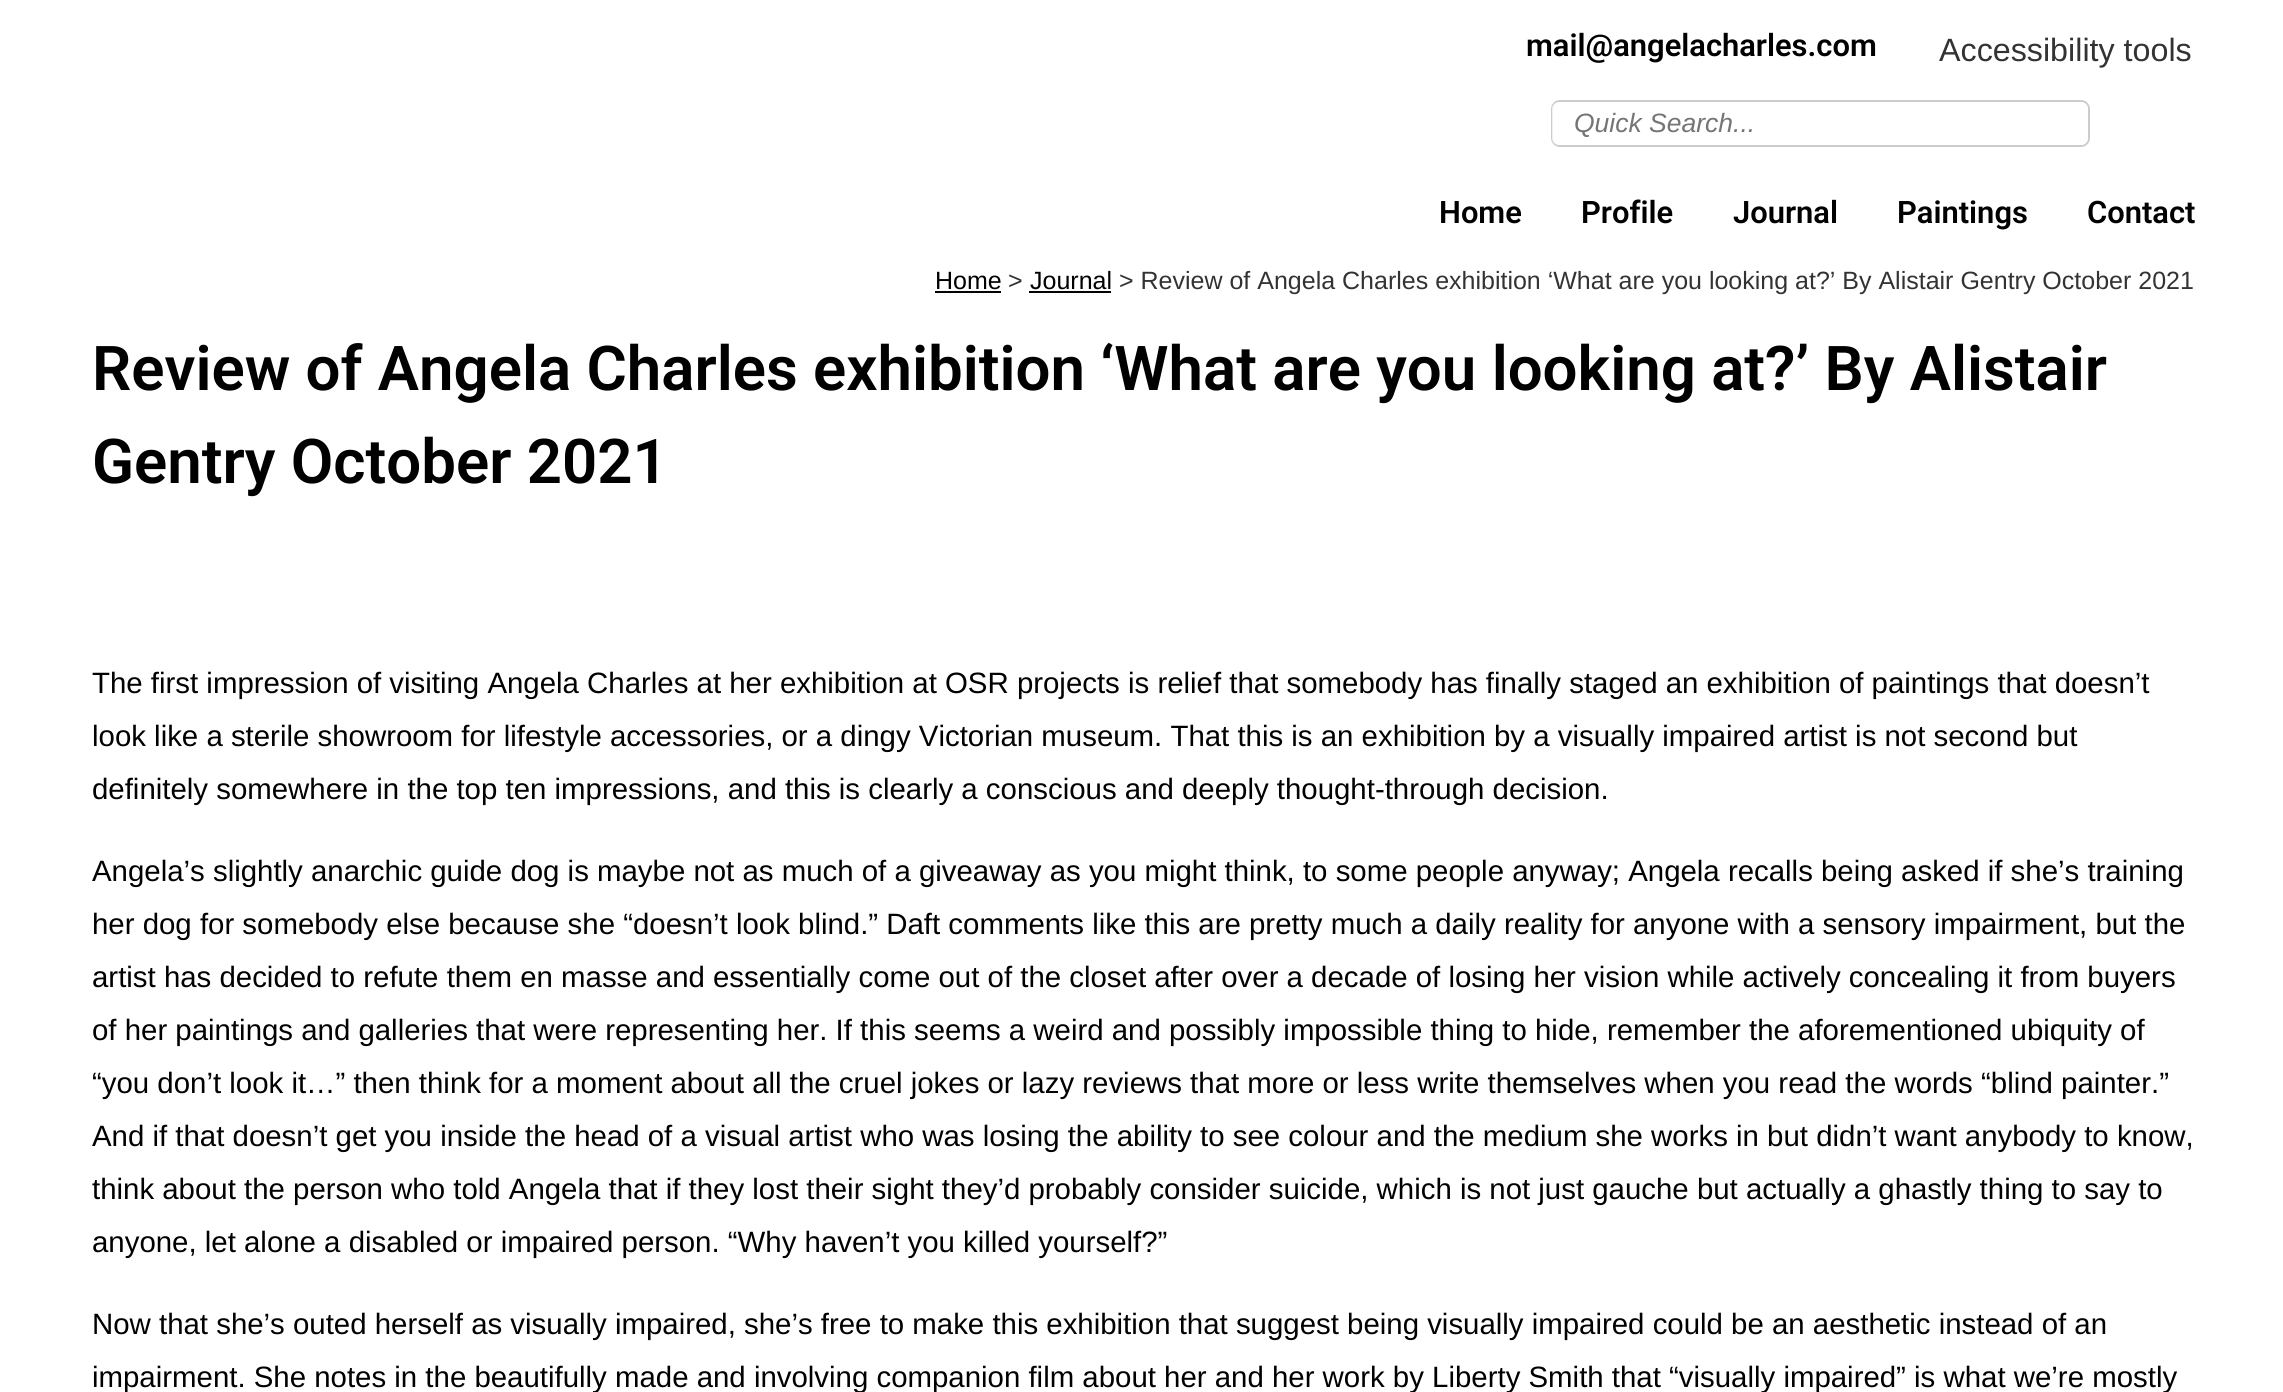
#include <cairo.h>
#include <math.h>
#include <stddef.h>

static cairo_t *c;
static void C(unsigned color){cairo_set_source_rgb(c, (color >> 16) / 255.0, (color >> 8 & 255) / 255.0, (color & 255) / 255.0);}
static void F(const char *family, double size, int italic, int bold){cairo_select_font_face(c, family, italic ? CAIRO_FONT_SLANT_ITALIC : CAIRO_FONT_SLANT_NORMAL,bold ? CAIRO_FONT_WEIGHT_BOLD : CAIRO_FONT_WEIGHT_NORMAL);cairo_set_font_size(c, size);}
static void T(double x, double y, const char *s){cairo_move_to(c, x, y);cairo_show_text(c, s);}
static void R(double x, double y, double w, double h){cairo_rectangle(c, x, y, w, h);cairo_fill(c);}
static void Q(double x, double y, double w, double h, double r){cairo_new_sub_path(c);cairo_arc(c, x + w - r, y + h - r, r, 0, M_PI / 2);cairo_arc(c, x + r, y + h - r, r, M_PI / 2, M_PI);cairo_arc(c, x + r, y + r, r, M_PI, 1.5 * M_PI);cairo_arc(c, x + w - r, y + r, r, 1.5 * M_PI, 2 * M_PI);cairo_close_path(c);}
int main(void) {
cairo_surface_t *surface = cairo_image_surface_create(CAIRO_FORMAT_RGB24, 2283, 1392);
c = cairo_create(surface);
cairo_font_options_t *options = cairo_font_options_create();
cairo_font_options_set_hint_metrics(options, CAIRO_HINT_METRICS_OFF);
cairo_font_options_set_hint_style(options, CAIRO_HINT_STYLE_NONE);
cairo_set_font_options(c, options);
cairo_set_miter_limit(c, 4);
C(0xffffff);
cairo_paint(c);
F("Roboto SemiBold",30.9,0,0);
C(0x000000);
T(1526,56,"mail@angelacharles.com");
F("Liberation Sans",32.25,0,0);
C(0x333333);
T(1939,61,"Accessibility tools");
Q(1552,101,537,45,8);
C(0xcccccc);
cairo_stroke(c);
cairo_set_source_rgba(c,1,1,1,0.7);
Q(1552,102,536,43,7);
cairo_fill(c);
F("Liberation Sans",26.5,1,0);
C(0x757575);
T(1574,132,"Quick Search...");
F("Roboto SemiBold",30.9,0,0);
C(0x000000);
T(1439,223,"Home");
T(1581,223,"Profile");
T(1733,223,"Journal");
T(1897,223,"Paintings");
T(2087,223,"Contact");
F("Liberation Sans",25,0,0);
T(935,289,"Home");
R(935,291,66,2);
C(0x333333);
T(1008,289,">");
C(0x000000);
T(1030,289,"Journal");
R(1029,291,82,2);
C(0x333333);
T(1119,289,"> Review of Angela Charles exhibition ‘What are you looking at?’ By Alistair Gentry October 2021");
F("Roboto SemiBold",61.75,0,0);
C(0x000000);
T(92,390,"Review of Angela Charles exhibition ‘What are you looking at?’ By Alistair");
T(92,483,"Gentry October 2021");
F("Liberation Sans",29.4,0,0);
T(92,693,"The first impression of visiting Angela Charles at her exhibition at OSR projects is relief that somebody has finally staged an exhibition of paintings that doesn’t");
T(92,746,"look like a sterile showroom for lifestyle accessories, or a dingy Victorian museum. That this is an exhibition by a visually impaired artist is not second but");
T(92,799,"definitely somewhere in the top ten impressions, and this is clearly a conscious and deeply thought-through decision.");
T(92,881,"Angela’s slightly anarchic guide dog is maybe not as much of a giveaway as you might think, to some people anyway; Angela recalls being asked if she’s training");
T(92,934,"her dog for somebody else because she “doesn’t look blind.” Daft comments like this are pretty much a daily reality for anyone with a sensory impairment, but the");
T(92,987,"artist has decided to refute them en masse and essentially come out of the closet after over a decade of losing her vision while actively concealing it from buyers");
T(92,1040,"of her paintings and galleries that were representing her. If this seems a weird and possibly impossible thing to hide, remember the aforementioned ubiquity of");
T(92,1093,"“you don’t look it…” then think for a moment about all the cruel jokes or lazy reviews that more or less write themselves when you read the words “blind painter.”");
T(92,1146,"And if that doesn’t get you inside the head of a visual artist who was losing the ability to see colour and the medium she works in but didn’t want anybody to know,");
T(92,1199,"think about the person who told Angela that if they lost their sight they’d probably consider suicide, which is not just gauche but actually a ghastly thing to say to");
T(92,1252,"anyone, let alone a disabled or impaired person. “Why haven’t you killed yourself?”");
T(92,1334,"Now that she’s outed herself as visually impaired, she’s free to make this exhibition that suggest being visually impaired could be an aesthetic instead of an");
T(92,1387,"impairment. She notes in the beautifully made and involving companion film about her and her work by Liberty Smith that “visually impaired” is what we’re mostly");
cairo_surface_write_to_png(surface, "o.png");
cairo_font_options_destroy(options);
cairo_destroy(c);
cairo_surface_destroy(surface);
return 0;
}
